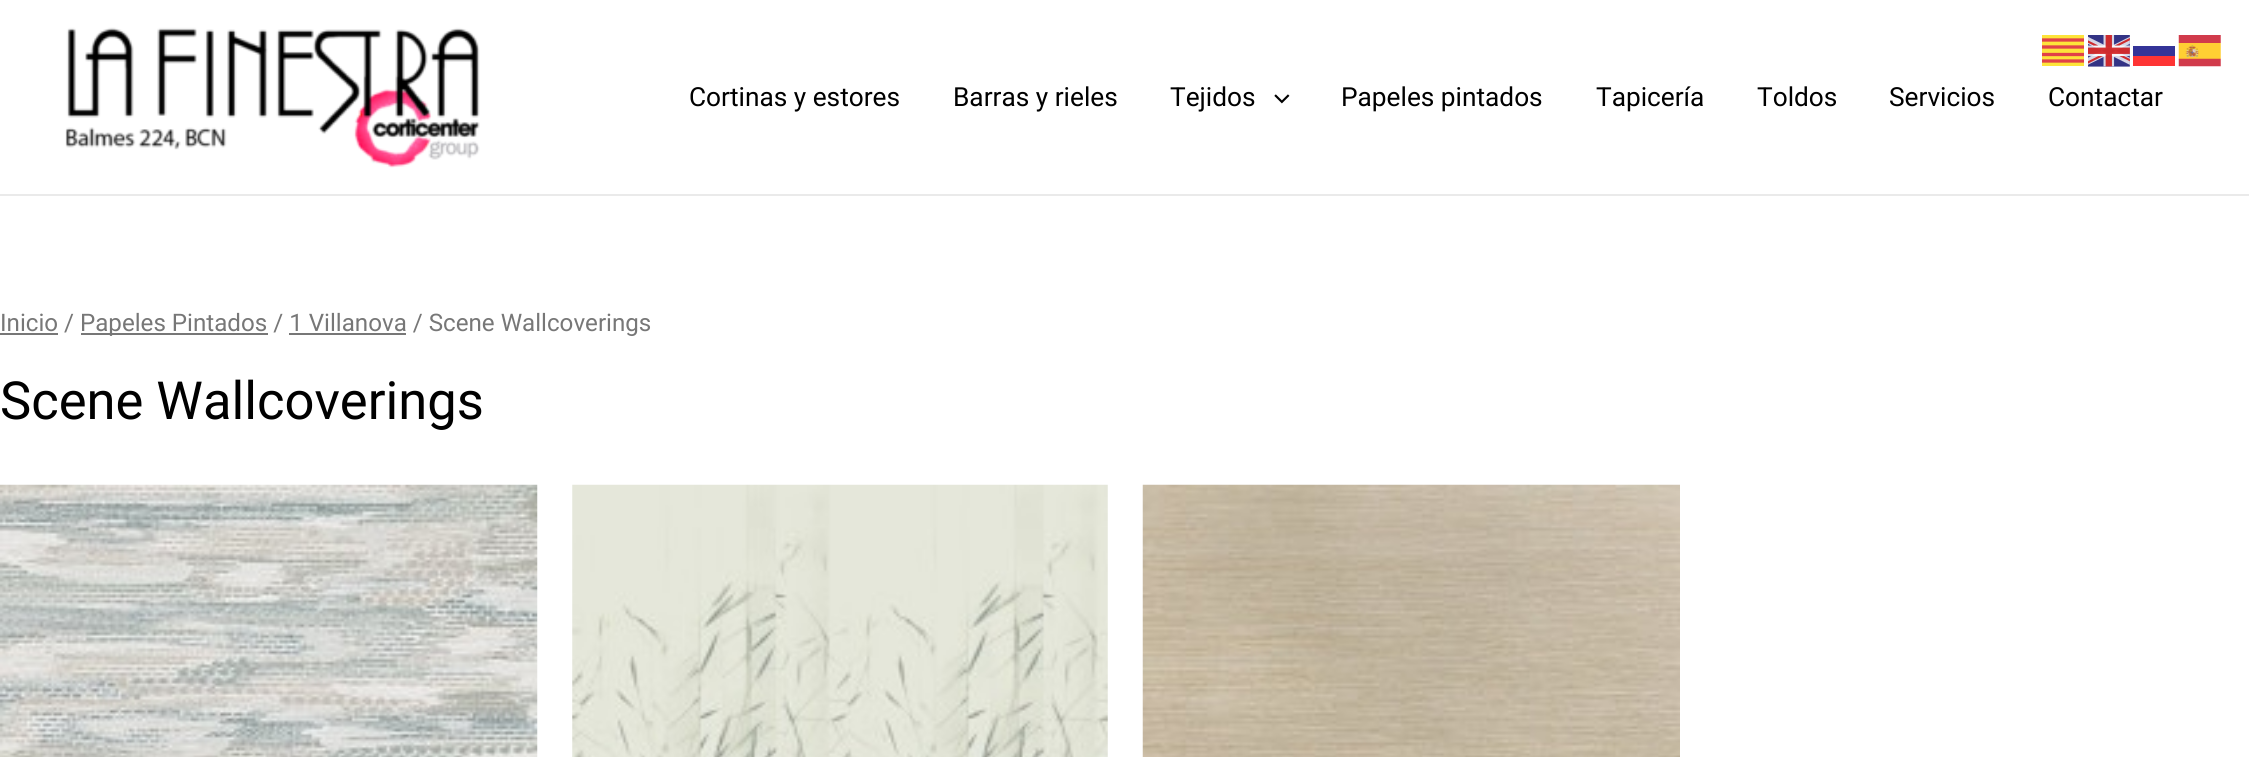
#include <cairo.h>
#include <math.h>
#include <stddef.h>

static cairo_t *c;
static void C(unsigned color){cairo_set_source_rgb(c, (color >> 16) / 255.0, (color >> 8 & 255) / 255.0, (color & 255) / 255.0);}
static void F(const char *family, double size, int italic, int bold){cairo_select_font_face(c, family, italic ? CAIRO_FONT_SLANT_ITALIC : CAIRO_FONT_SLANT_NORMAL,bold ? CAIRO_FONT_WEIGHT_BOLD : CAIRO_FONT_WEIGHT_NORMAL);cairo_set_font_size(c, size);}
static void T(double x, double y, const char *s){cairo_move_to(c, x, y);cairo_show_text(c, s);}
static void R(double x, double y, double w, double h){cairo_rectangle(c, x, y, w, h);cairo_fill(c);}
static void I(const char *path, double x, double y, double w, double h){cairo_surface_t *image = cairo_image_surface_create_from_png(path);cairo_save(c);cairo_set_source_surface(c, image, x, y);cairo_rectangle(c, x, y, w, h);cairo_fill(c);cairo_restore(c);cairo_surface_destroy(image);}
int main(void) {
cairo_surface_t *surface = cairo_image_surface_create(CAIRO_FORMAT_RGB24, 2249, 757);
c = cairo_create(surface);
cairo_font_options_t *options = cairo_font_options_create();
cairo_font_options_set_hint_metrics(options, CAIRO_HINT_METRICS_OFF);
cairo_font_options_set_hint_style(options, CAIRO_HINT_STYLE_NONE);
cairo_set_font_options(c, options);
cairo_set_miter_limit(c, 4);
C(0xffffff);
cairo_paint(c);
C(0xfde43a);
R(2042,35,42,31);
I("1.png",2088,35,42,32);
I("2.png",2178,35,43,32);
cairo_new_path(c);
cairo_move_to(c,2042,40);
cairo_line_to(c,2084,40);
cairo_move_to(c,2084,47);
cairo_line_to(c,2042,47);
cairo_move_to(c,2042,54.5);
cairo_line_to(c,2084,54.5);
cairo_move_to(c,2084,61);
cairo_line_to(c,2042,61);
C(0xe14148);
cairo_set_line_width(c,3.3);
cairo_stroke(c);
C(0x343498);
R(2133,46,42,10);
C(0xfe3434);
R(2133,56,42,10);
C(0xeaeaea);
R(0,194,2249,2);
I("3.png",65,27,415,141);
F("Roboto",26.25,0,0);
C(0x000000);
T(689,106,"Cortinas y estores");
T(953,106,"Barras y rieles");
T(1170,106,"Tejidos");
I("4.png",1274,94,16,10);
T(1341,106,"Papeles pintados");
T(1596,106,"Tapicería");
T(1757,106,"Toldos");
T(1889,106,"Servicios");
T(2048,106,"Contactar");
F("Roboto",24.15,0,0);
C(0x777777);
T(0,331,"Inicio /");
R(0,333,58,2);
R(81,333,187,2);
T(80,331,"Papeles Pintados / 1 Villanova / Scene Wallcoverings");
R(289,333,117,2);
F("Roboto",52.5,0,0);
C(0x000000);
T(0,419,"Scene Wallcoverings");
I("5.png",0,484,538,273);
I("6.png",572,484,536,273);
I("7.png",1142,484,538,273);
cairo_surface_write_to_png(surface, "o.png");
cairo_font_options_destroy(options);
cairo_destroy(c);
cairo_surface_destroy(surface);
return 0;
}
